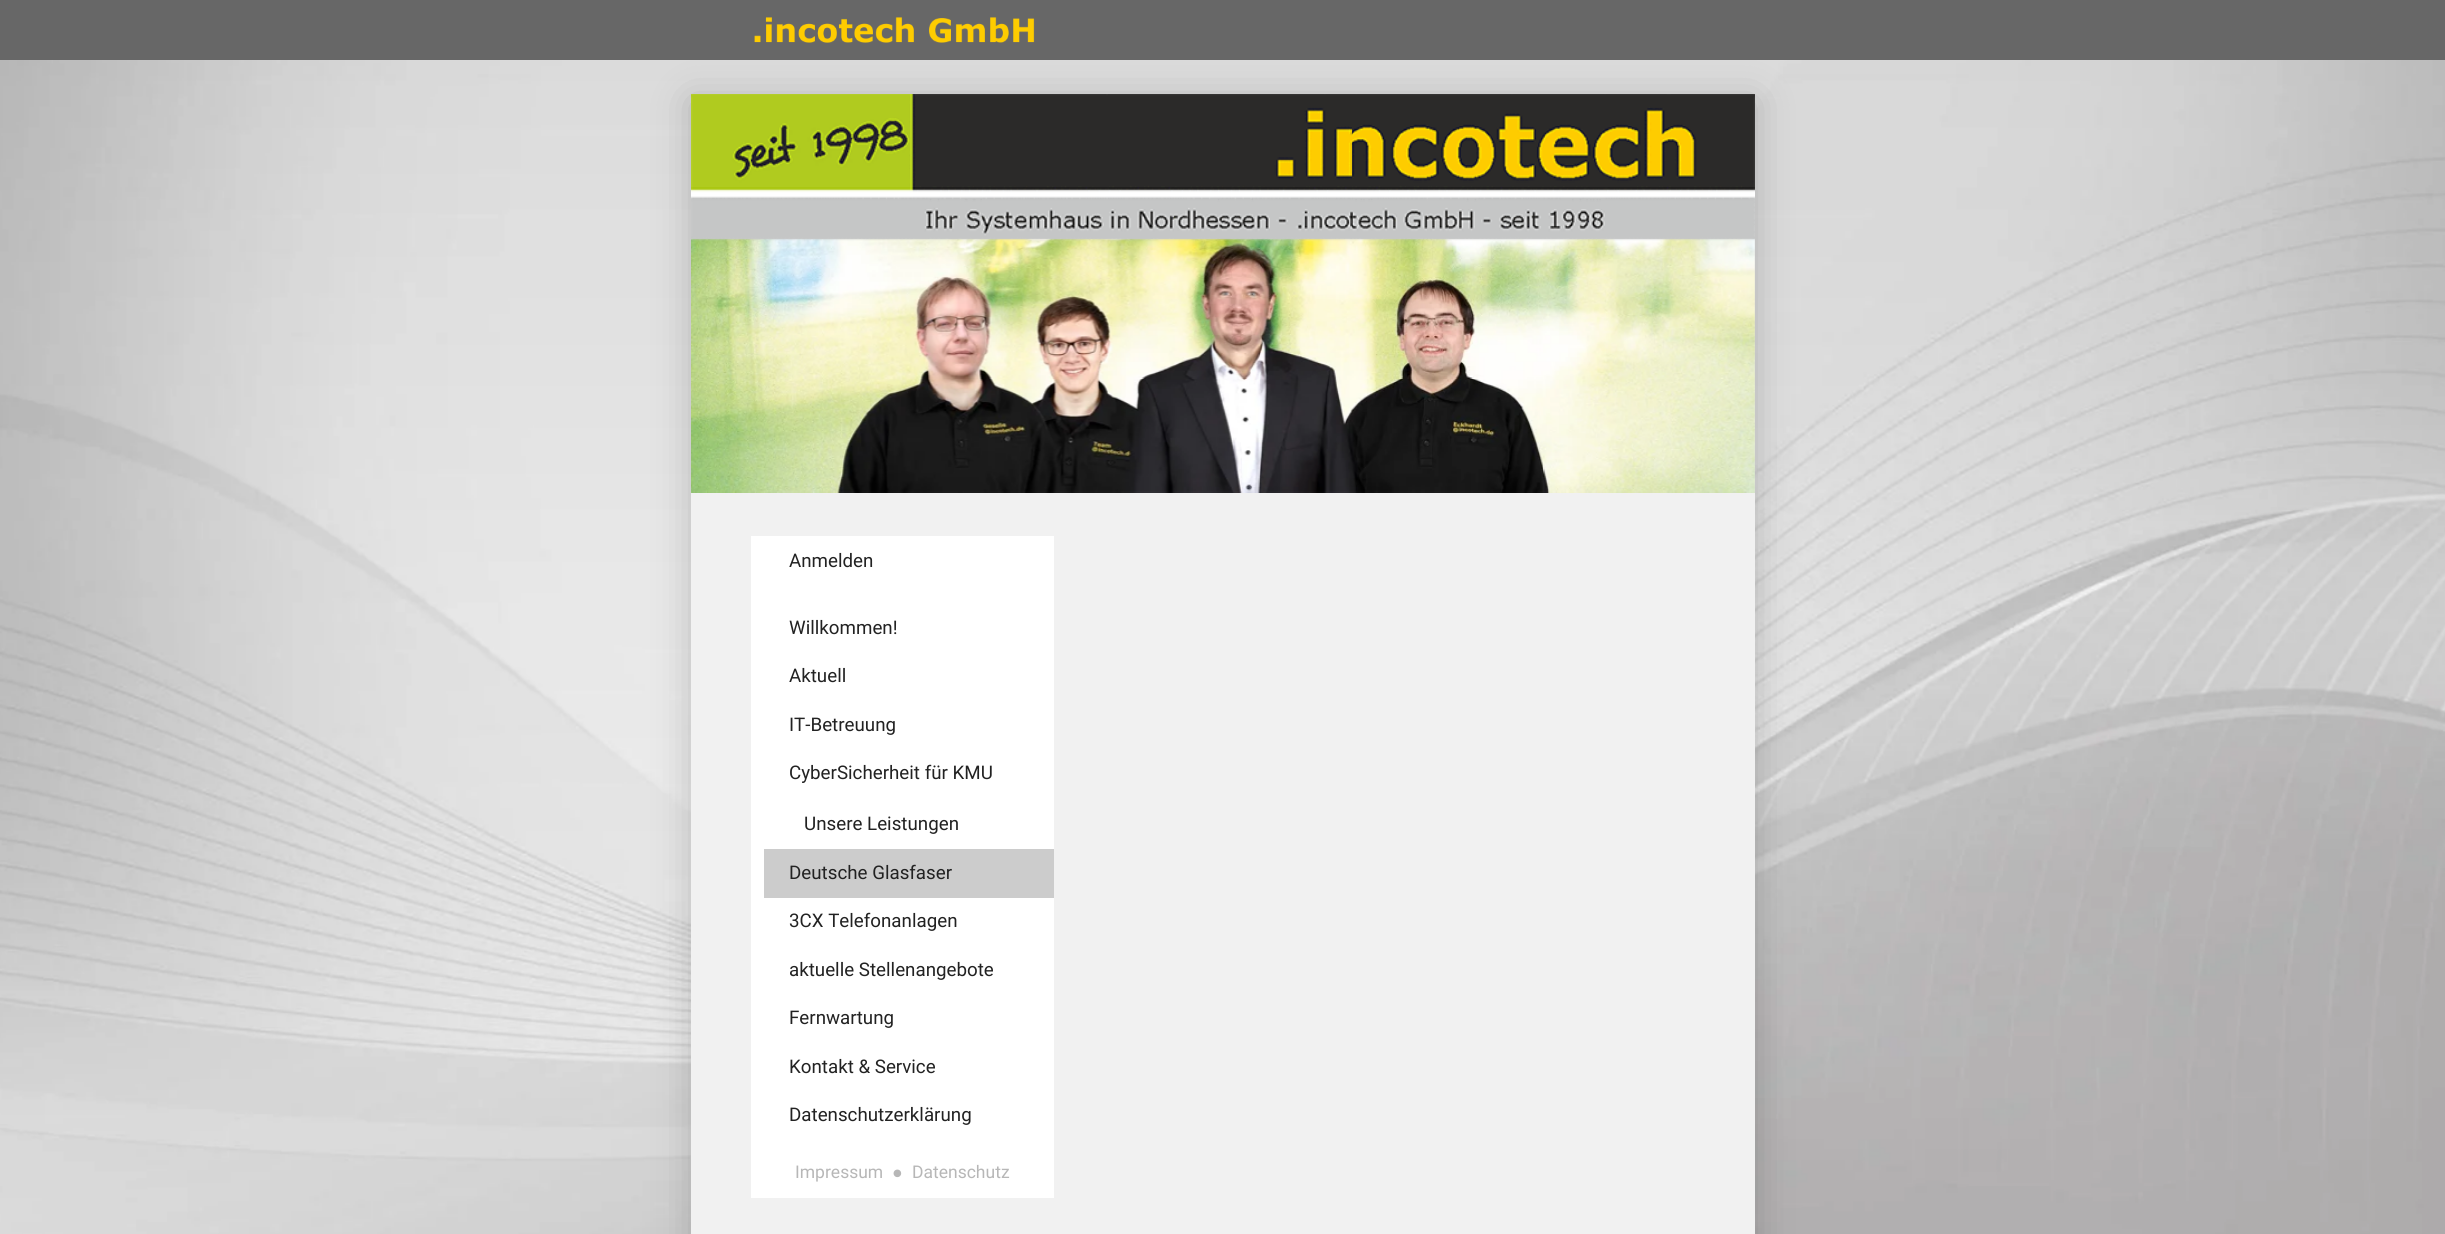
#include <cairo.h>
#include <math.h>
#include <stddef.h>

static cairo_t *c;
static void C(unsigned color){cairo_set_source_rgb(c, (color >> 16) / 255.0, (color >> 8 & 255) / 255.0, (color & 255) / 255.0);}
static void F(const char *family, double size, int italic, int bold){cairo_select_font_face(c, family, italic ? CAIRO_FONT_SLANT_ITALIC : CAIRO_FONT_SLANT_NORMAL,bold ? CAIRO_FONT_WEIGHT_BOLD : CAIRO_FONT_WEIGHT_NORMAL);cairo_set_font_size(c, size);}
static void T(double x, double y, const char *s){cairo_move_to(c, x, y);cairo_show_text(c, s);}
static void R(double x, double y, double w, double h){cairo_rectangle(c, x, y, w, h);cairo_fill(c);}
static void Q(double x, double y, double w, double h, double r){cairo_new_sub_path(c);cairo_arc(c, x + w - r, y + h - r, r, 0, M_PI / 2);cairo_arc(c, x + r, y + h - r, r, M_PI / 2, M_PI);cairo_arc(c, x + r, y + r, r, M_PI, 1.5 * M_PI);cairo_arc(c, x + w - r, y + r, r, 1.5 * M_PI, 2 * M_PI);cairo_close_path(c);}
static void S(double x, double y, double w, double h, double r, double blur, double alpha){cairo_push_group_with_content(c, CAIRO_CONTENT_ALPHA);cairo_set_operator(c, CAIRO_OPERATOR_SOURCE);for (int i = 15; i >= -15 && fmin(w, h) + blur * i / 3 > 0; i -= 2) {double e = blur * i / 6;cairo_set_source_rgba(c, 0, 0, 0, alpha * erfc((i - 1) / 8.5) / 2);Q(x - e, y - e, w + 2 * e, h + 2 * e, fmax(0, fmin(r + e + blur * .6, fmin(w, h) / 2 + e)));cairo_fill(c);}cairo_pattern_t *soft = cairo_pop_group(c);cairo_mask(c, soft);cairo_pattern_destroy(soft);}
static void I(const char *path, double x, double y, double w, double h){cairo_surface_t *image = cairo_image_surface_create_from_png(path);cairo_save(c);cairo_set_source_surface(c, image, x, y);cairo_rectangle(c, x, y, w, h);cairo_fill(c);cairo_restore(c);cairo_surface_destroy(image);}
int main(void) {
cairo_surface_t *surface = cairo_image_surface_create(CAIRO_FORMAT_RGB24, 2445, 1234);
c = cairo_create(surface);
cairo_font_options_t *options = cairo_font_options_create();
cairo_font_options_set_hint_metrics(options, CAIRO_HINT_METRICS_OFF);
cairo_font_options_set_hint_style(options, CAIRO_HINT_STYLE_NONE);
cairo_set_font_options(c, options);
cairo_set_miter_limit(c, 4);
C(0xffffff);
cairo_paint(c);
I("1.png",0,60,2445,1174);
C(0xf1f1f1);
R(691,493,1064,741);
C(0xffffff);
R(751,536,303,662);
C(0xcccccc);
R(764,849,290,49);
cairo_save(c);
cairo_set_fill_rule(c,CAIRO_FILL_RULE_EVEN_ODD);
cairo_new_path(c);
cairo_move_to(c,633,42);
cairo_line_to(c,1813,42);
cairo_line_to(c,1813,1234);
cairo_line_to(c,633,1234);
cairo_close_path(c);
cairo_move_to(c,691,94);
cairo_line_to(c,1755,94);
cairo_line_to(c,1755,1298);
cairo_line_to(c,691,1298);
cairo_close_path(c);
cairo_clip(c);
C(0x000000);
S(691,100,1064,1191,0,19,.2);
cairo_restore(c);
C(0x676767);
R(0,0,2445,60);
I("2.png",754,17,281,26);
I("4.png",691,238,1064,255);
I("3.png",691,94,1064,147);
F("Roboto",18.75,0,0);
C(0x222222);
T(789,567,"Anmelden");
T(789,634,"Willkommen!");
T(789,682,"Aktuell");
T(789,731,"IT-Betreuung");
T(789,779,"CyberSicherheit für KMU");
T(804,830,"Unsere Leistungen");
T(789,879,"Deutsche Glasfaser");
T(789,927,"3CX Telefonanlagen");
T(789,976,"aktuelle Stellenangebote");
T(789,1024,"Fernwartung");
T(789,1073,"Kontakt & Service");
T(789,1121,"Datenschutzerklärung");
F("Roboto",17.5,0,0);
C(0xb7b7b7);
T(795,1178,"Impressum");
F("FreeSans",17.5,0,0);
T(893,1178,"⦁");
F("Roboto",17.5,0,0);
T(912,1178,"Datenschutz");
cairo_surface_write_to_png(surface, "o.png");
cairo_font_options_destroy(options);
cairo_destroy(c);
cairo_surface_destroy(surface);
return 0;
}
